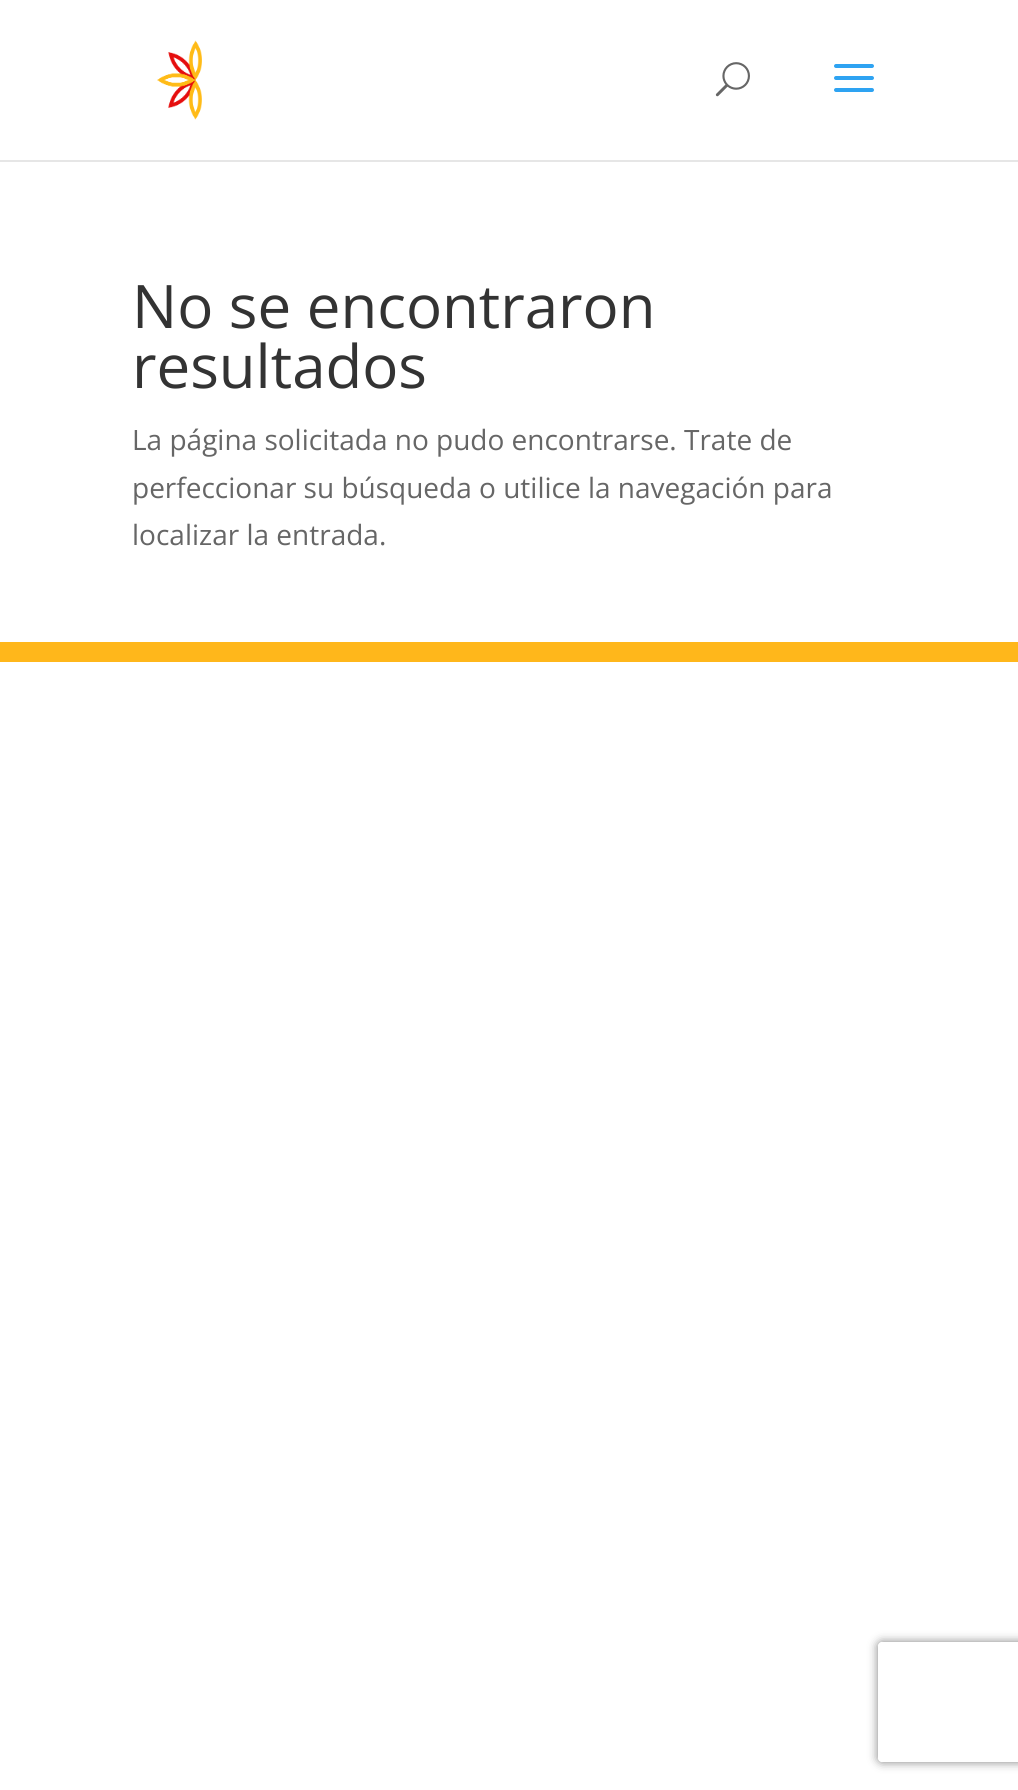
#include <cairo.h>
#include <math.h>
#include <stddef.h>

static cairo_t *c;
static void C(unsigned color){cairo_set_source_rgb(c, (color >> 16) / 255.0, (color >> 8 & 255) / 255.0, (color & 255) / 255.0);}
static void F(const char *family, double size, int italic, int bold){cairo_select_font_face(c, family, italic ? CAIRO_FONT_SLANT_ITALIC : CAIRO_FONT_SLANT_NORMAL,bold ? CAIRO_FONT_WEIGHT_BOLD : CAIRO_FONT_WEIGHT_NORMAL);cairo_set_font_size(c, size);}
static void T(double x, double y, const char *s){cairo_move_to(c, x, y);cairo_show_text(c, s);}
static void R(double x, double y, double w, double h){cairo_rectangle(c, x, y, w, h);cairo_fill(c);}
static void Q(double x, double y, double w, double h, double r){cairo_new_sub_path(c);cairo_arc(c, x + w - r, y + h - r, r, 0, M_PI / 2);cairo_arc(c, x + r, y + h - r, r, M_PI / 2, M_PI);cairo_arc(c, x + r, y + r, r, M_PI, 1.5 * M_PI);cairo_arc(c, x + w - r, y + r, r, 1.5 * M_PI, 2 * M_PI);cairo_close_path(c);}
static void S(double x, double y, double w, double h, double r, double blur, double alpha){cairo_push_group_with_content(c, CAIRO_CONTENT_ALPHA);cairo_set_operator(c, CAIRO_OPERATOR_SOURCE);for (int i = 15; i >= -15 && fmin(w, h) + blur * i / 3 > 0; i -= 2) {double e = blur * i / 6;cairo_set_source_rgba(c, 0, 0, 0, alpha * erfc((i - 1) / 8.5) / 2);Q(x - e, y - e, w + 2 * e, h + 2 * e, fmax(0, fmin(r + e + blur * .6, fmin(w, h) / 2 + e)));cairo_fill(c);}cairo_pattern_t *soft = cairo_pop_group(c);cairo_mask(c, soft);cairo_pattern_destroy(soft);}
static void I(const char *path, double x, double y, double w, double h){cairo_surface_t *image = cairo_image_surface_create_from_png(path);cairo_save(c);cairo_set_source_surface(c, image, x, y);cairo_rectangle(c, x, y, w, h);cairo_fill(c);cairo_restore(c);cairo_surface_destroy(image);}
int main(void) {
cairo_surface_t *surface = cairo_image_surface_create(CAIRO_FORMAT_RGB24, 1018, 1790);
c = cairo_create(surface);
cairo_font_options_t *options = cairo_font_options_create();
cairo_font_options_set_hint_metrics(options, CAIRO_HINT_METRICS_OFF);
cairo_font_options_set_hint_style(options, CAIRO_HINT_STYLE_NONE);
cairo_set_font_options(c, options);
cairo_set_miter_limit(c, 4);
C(0xffffff);
cairo_paint(c);
C(0xe6e6e6);
R(0,160,1018,2);
I("1.png",157,40,45,80);
I("2.png",715,62,35,35);
I("3.png",834,64,40,28);
F("Open Sans",60,0,0);
C(0x333333);
T(132,328,"No se encontraron");
T(132,388,"resultados");
F("Open Sans",28,0,0);
C(0x666666);
T(132,450,"La página solicitada no pudo encontrarse. Trate de");
T(132,498,"perfeccionar su búsqueda o utilice la navegación para");
T(132,545,"localizar la entrada.");
C(0xffb71b);
R(0,642,1018,20);
cairo_save(c);
cairo_set_fill_rule(c,CAIRO_FILL_RULE_EVEN_ODD);
cairo_new_path(c);
cairo_move_to(c,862,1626);
cairo_line_to(c,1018,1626);
cairo_line_to(c,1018,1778);
cairo_line_to(c,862,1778);
cairo_close_path(c);
cairo_move_to(c,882,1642);
cairo_line_to(c,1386,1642);
cairo_curve_to(c,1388,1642,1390,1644,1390,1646);
cairo_line_to(c,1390,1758);
cairo_curve_to(c,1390,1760,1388,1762,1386,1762);
cairo_line_to(c,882,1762);
cairo_curve_to(c,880,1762,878,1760,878,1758);
cairo_line_to(c,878,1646);
cairo_curve_to(c,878,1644,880,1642,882,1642);
cairo_close_path(c);
cairo_clip(c);
C(0x808080);
S(878,1642,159,120,4,5,1);
cairo_restore(c);
cairo_surface_write_to_png(surface, "o.png");
cairo_font_options_destroy(options);
cairo_destroy(c);
cairo_surface_destroy(surface);
return 0;
}
